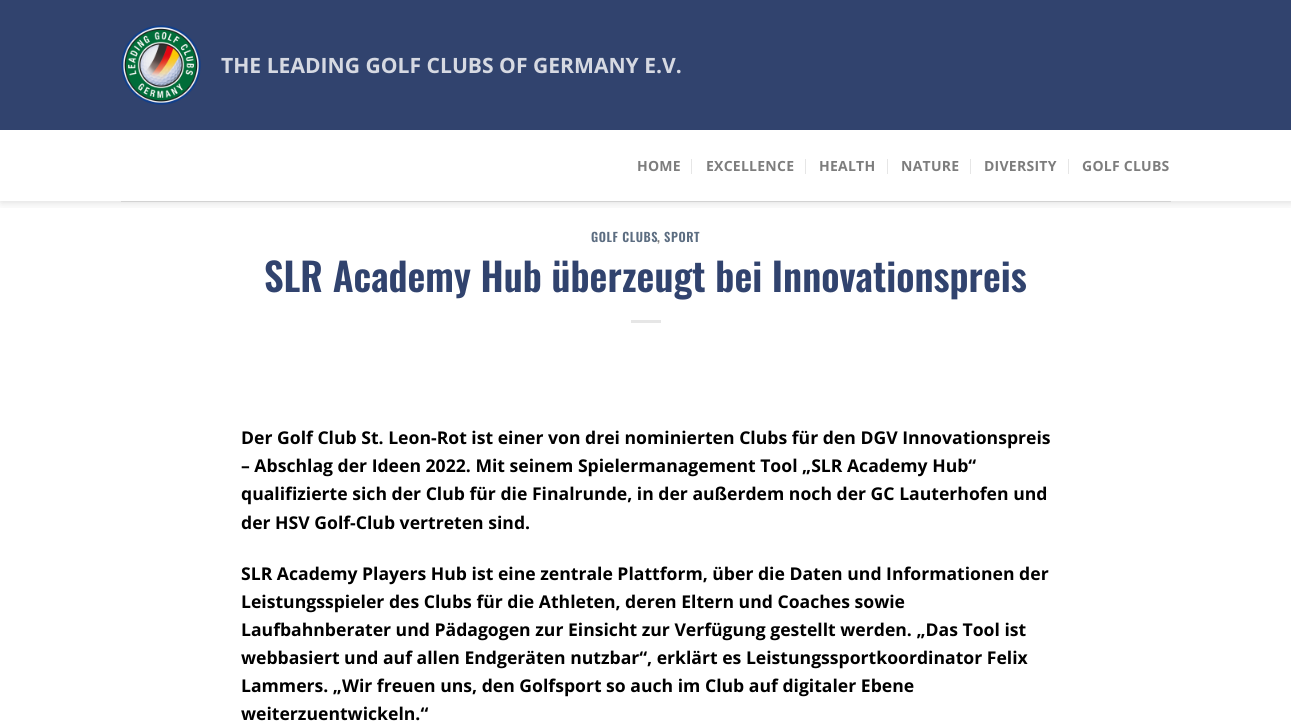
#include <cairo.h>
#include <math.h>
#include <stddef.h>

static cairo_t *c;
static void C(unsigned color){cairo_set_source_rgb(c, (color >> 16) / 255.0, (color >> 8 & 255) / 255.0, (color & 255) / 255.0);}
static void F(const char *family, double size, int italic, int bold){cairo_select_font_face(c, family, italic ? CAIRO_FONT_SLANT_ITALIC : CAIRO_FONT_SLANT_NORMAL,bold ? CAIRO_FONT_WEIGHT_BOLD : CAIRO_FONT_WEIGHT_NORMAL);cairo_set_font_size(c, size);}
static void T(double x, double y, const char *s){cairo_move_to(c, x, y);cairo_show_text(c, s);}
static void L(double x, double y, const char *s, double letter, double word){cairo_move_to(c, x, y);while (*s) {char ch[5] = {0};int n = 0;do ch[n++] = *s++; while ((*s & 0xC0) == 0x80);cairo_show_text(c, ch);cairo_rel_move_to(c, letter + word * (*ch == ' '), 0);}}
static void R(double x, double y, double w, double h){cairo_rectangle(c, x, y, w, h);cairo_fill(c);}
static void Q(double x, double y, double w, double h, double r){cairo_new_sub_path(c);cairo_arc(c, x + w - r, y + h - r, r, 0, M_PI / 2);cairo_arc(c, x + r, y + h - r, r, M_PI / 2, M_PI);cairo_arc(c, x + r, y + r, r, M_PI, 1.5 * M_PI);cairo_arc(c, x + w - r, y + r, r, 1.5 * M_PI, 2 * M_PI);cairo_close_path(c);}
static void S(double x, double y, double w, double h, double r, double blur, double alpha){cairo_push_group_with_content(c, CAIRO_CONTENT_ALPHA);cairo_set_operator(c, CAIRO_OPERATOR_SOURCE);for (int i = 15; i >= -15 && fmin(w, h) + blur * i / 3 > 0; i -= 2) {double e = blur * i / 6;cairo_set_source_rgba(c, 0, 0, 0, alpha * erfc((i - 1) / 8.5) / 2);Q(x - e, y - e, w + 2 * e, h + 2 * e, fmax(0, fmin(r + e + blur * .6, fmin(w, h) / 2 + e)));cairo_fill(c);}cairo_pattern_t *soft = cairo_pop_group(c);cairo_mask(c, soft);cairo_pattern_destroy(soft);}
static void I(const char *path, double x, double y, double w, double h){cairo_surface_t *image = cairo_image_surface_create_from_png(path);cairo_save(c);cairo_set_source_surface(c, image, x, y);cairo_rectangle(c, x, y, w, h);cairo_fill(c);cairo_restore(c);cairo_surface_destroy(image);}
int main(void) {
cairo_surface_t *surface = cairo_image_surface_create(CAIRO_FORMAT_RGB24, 1291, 725);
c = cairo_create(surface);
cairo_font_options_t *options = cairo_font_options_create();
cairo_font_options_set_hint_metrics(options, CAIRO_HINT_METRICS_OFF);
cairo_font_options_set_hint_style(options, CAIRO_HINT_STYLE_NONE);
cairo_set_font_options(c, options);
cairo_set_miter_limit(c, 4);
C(0xffffff);
cairo_paint(c);
cairo_save(c);
cairo_rectangle(c,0,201,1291,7);
cairo_clip(c);
C(0x000000);
S(1,1,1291,201,0,5,.15);
cairo_restore(c);
C(0x31436e);
R(0,0,1291,130);
I("1.png",121,25,80,80);
F("Open Sans",21.1,0,1);
C(0xd6d9e2);
T(221,73,"THE LEADING GOLF CLUBS OF GERMANY E.V.");
F("Open Sans",14,0,1);
C(0x7d7d7d);
L(637,171,"HOME",.25,0);
C(0xe6e6e6);
R(691,159,1,15);
C(0x7d7d7d);
L(706,171,"EXCELLENCE",.25,0);
C(0xe6e6e6);
R(805,159,1,15);
C(0x7d7d7d);
L(819,171,"HEALTH",.25,0);
C(0xe6e6e6);
R(887,159,1,15);
C(0x7d7d7d);
L(901,171,"NATURE",.25,0);
C(0xe6e6e6);
R(970,159,1,15);
C(0x7d7d7d);
L(984,171,"DIVERSITY",.25,0);
C(0xe6e6e6);
R(1068,159,1,15);
C(0x7d7d7d);
L(1082,171,"GOLF CLUBS",.25,0);
C(0xd3d3d3);
R(121,201,1050,1);
F("Oswald SemiBold",12.5,0,0);
C(0x5c6d81);
L(591,242,"GOLF CLUBS",.6,0);
C(0x777777);
L(657,242,",",.6,0);
C(0x5c6d81);
L(664,242,"SPORT",.6,0);
F("Oswald SemiBold",38.75,0,0);
C(0x31436e);
T(264,292,"SLR Academy Hub überzeugt bei Innovationspreis");
C(0xe6e6e6);
R(631,320,30,3);
F("Open Sans",17.6,0,1);
C(0x000000);
T(241,444,"Der Golf Club St. Leon-Rot ist einer von drei nominierten Clubs für den DGV Innovationspreis");
T(241,472,"– Abschlag der Ideen 2022. Mit seinem Spielermanagement Tool „SLR Academy Hub“");
T(241,500,"qualifizierte sich der Club für die Finalrunde, in der außerdem noch der GC Lauterhofen und");
T(241,529,"der HSV Golf-Club vertreten sind.");
T(241,580,"SLR Academy Players Hub ist eine zentrale Plattform, über die Daten und Informationen der");
T(241,608,"Leistungsspieler des Clubs für die Athleten, deren Eltern und Coaches sowie");
T(241,636,"Laufbahnberater und Pädagogen zur Einsicht zur Verfügung gestellt werden. „Das Tool ist");
T(241,664,"webbasiert und auf allen Endgeräten nutzbar“, erklärt es Leistungssportkoordinator Felix");
T(241,692,"Lammers. „Wir freuen uns, den Golfsport so auch im Club auf digitaler Ebene");
T(241,720,"weiterzuentwickeln.“");
cairo_surface_write_to_png(surface, "o.png");
cairo_font_options_destroy(options);
cairo_destroy(c);
cairo_surface_destroy(surface);
return 0;
}
